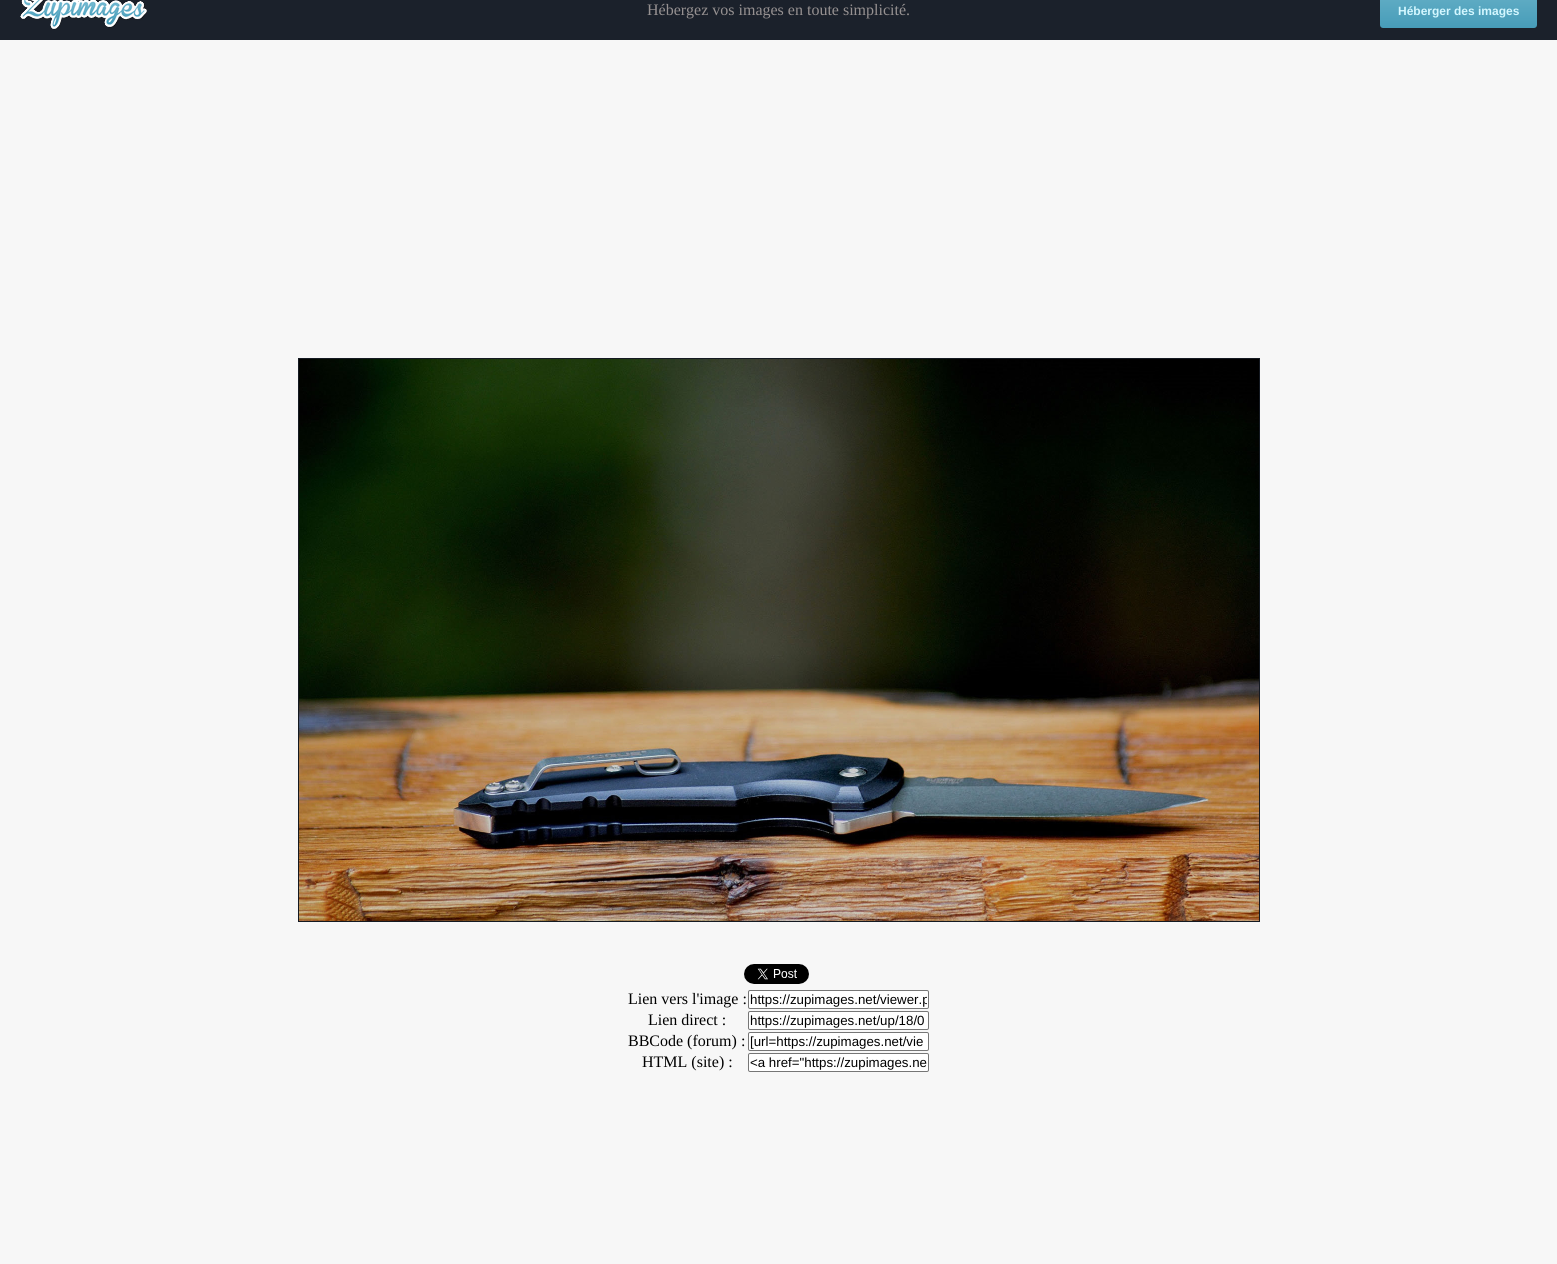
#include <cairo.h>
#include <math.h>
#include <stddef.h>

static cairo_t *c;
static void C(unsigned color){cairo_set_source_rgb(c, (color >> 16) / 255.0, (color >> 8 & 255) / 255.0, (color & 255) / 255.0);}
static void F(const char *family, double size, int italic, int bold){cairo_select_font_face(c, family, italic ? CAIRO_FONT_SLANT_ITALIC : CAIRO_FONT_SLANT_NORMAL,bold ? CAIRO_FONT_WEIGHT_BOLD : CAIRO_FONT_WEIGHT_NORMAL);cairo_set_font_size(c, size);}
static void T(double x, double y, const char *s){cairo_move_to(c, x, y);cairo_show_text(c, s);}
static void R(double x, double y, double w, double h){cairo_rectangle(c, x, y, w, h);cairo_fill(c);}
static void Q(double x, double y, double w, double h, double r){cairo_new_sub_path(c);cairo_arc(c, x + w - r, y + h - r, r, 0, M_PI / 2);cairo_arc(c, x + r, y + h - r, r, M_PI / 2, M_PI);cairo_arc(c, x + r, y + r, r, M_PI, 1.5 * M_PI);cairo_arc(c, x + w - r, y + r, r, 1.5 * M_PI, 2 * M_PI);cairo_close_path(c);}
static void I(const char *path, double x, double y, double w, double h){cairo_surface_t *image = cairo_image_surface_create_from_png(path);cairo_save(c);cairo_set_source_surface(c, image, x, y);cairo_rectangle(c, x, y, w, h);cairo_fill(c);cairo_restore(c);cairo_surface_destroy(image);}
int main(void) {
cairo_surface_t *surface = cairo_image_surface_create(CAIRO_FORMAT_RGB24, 1557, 1264);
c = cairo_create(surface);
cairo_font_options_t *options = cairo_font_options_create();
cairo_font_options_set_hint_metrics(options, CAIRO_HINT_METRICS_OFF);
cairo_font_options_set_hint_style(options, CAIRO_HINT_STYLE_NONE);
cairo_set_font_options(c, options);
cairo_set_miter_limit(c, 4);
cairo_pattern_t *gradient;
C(0xf7f7f7);
cairo_paint(c);
C(0x1b212b);
R(0,0,1557,40);
I("1.png",20,0,127,30);
F("Liberation Serif",16,0,0);
C(0x969191);
T(647,15,"Hébergez vos images en toute simplicité.");
gradient = cairo_pattern_create_linear(1459,-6,1459,28);
cairo_pattern_add_color_stop_rgba(gradient,0,0.384,0.682,0.773,1);
cairo_pattern_add_color_stop_rgba(gradient,1,0.278,0.612,0.725,1);
cairo_set_source(c,gradient);
cairo_pattern_destroy(gradient);
Q(1380,-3,157,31,3);
cairo_fill(c);
F("Liberation Sans",12,0,1);
C(0xd3f7ff);
T(1398,15,"Héberger des images");
cairo_rectangle(c,298.5,358.5,961,563);
C(0x141921);
cairo_set_line_width(c,1);
cairo_stroke(c);
I("2.png",299,359,960,562);
I("3.png",744,964,65,20);
F("Liberation Serif",16,0,0);
C(0x000000);
T(628,1004,"Lien vers l'image :");
C(0xffffff);
Q(748.5,990.5,180,18,1.5);
cairo_fill_preserve(c);
C(0x767676);
cairo_stroke(c);
cairo_save(c);
cairo_rectangle(c,750,992,177,15);
cairo_clip(c);
F("Liberation Sans",13.3,0,0);
C(0x000000);
T(750,1004,"https://zupimages.net/viewer.p");
cairo_restore(c);
C(0x000000);
T(648,1025,"Lien direct :");
C(0xffffff);
Q(748.5,1011.5,180,18,1.5);
cairo_fill_preserve(c);
C(0x767676);
cairo_stroke(c);
F("Liberation Sans",13.3,0,0);
C(0x000000);
T(750,1025,"https://zupimages.net/up/18/0");
F("Liberation Serif",16,0,0);
T(628,1046,"BBCode (forum) :");
C(0xffffff);
Q(748.5,1032.5,180,18,1.5);
cairo_fill_preserve(c);
C(0x767676);
cairo_stroke(c);
F("Liberation Sans",13.3,0,0);
C(0x000000);
T(750,1046,"[url=https://zupimages.net/vie");
F("Liberation Serif",16,0,0);
T(642,1067,"HTML (site) :");
C(0xffffff);
Q(748.5,1053.5,180,18,1.5);
cairo_fill_preserve(c);
C(0x767676);
cairo_stroke(c);
F("Liberation Sans",13.3,0,0);
C(0x000000);
T(750,1067,"<a href=\"https://zupimages.ne");
cairo_surface_write_to_png(surface, "o.png");
cairo_font_options_destroy(options);
cairo_destroy(c);
cairo_surface_destroy(surface);
return 0;
}
